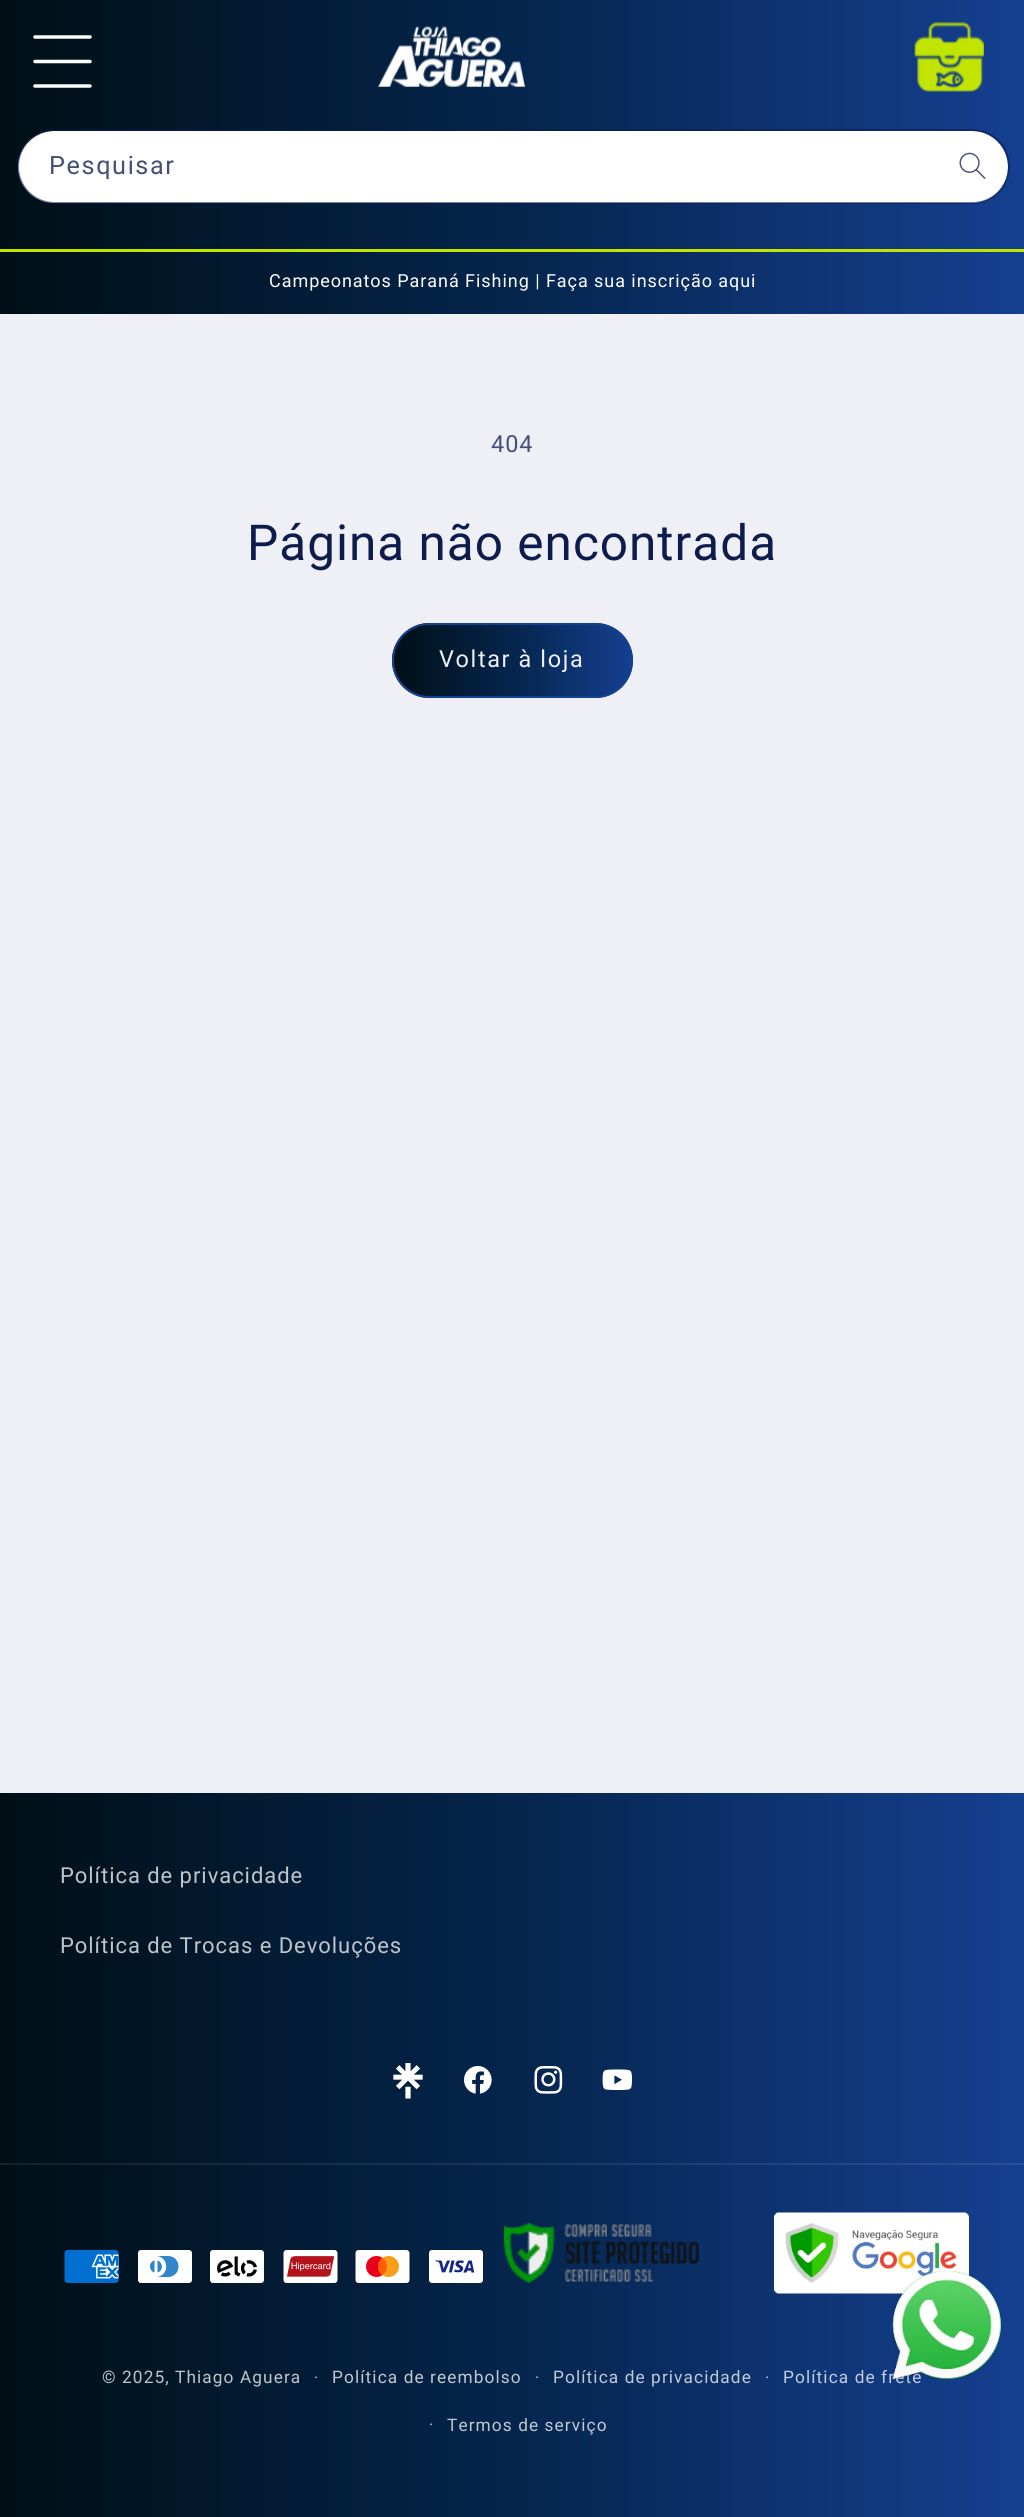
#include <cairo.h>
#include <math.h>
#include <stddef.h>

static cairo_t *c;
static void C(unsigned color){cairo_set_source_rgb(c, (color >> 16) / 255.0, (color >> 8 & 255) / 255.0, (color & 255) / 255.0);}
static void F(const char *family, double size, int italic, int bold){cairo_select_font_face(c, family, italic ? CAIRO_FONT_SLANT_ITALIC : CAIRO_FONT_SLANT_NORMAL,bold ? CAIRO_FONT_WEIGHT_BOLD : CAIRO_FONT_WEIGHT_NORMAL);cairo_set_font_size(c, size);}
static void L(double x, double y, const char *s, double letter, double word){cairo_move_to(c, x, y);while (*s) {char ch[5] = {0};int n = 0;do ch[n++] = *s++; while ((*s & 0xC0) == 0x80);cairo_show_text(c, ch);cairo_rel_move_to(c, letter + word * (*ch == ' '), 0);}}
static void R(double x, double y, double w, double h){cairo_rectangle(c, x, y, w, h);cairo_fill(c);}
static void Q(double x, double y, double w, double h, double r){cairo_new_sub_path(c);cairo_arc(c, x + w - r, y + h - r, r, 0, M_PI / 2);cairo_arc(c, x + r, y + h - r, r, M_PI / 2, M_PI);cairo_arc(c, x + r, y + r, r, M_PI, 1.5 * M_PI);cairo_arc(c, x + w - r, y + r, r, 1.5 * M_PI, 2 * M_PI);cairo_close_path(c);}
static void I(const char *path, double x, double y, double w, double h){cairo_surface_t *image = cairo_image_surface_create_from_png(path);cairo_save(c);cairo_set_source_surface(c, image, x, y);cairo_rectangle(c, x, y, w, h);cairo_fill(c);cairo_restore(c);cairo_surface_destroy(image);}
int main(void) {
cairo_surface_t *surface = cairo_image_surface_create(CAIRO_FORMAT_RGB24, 1024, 2517);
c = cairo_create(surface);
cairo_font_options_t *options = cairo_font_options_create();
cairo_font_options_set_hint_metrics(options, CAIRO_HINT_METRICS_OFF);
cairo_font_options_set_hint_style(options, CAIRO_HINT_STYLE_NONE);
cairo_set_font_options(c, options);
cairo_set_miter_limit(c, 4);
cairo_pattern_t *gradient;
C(0xeff0f5);
cairo_paint(c);
gradient = cairo_pattern_create_linear(0,125,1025,124);
cairo_pattern_add_color_stop_rgba(gradient,0,0,0.059,0.086,1);
cairo_pattern_add_color_stop_rgba(gradient,.5,0.02,0.145,0.302,1);
cairo_pattern_add_color_stop_rgba(gradient,1,0.082,0.251,0.569,1);
cairo_set_source(c,gradient);
cairo_pattern_destroy(gradient);
R(0,0,1024,249);
I("1.png",33,35,59,53);
I("2.png",378,26,148,61);
I("3.png",914,22,70,70);
C(0xffffff);
Q(18,131,990,72,36);
cairo_fill(c);
I("4.png",959,152,27,27);
Q(18,130,991,73,36.5);
cairo_set_source_rgba(c,0.055,0.106,0.302,0.55);
cairo_stroke(c);
F("Roboto",25.25,0,0);
C(0x465077);
L(49,174,"Pesquisar",1.6,0);
gradient = cairo_pattern_create_linear(0,281,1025,281);
cairo_pattern_add_color_stop_rgba(gradient,0,0,0.059,0.086,1);
cairo_pattern_add_color_stop_rgba(gradient,.5,0.02,0.145,0.302,1);
cairo_pattern_add_color_stop_rgba(gradient,1,0.082,0.251,0.569,1);
cairo_set_source(c,gradient);
cairo_pattern_destroy(gradient);
R(0,252,1024,62);
C(0xc2e500);
R(0,249,1024,3);
F("Roboto",18,0,0);
C(0xffffff);
L(269,287,"Campeonatos Paraná Fishing | Faça sua inscrição aqui",.95,0);
F("Roboto",23.5,0,0);
C(0x465077);
L(491,452,"404",.95,0);
F("Roboto",49.5,0,0);
C(0x0e1b4d);
L(247,560,"Página não encontrada",1,0);
gradient = cairo_pattern_create_linear(392,660,633,660);
cairo_pattern_add_color_stop_rgba(gradient,0,0,0.059,0.086,1);
cairo_pattern_add_color_stop_rgba(gradient,.5,0.02,0.145,0.302,1);
cairo_pattern_add_color_stop_rgba(gradient,1,0.082,0.251,0.569,1);
cairo_set_source(c,gradient);
cairo_pattern_destroy(gradient);
Q(392,623,241,75,37.5);
cairo_fill(c);
Q(393,624,239,73,36.5);
C(0x154091);
cairo_stroke(c);
F("Roboto",23.5,0,0);
C(0xeff0f5);
L(439,667,"Voltar à loja",1.6,0);
gradient = cairo_pattern_create_linear(0,2155,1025,2155);
cairo_pattern_add_color_stop_rgba(gradient,0,0,0.059,0.086,1);
cairo_pattern_add_color_stop_rgba(gradient,.5,0.02,0.145,0.302,1);
cairo_pattern_add_color_stop_rgba(gradient,1,0.082,0.251,0.569,1);
cairo_set_source(c,gradient);
cairo_pattern_destroy(gradient);
R(0,1793,1024,724);
gradient = cairo_pattern_create_linear(0,2155,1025,2155);
cairo_pattern_add_color_stop_rgba(gradient,0,0.078,0.133,0.161,1);
cairo_pattern_add_color_stop_rgba(gradient,.5,0.098,0.212,0.357,1);
cairo_pattern_add_color_stop_rgba(gradient,1,0.157,0.31,0.604,1);
cairo_set_source(c,gradient);
cairo_pattern_destroy(gradient);
R(0,2163,1024,2);
F("Roboto",22,0,0);
C(0xc0c5ca);
L(60,1883,"Política de privacidade",.95,0);
L(60,1953,"Política de Trocas e Devoluções",.95,0);
I("5.png",393,2063,30,36);
I("6.png",464,2066,28,28);
I("7.png",534,2066,29,28);
I("8.png",602,2069,31,22);
I("9.png",64,2250,55,33);
I("10.png",138,2250,54,33);
I("11.png",210,2250,54,33);
I("12.png",283,2249,56,35);
I("13.png",354,2249,57,35);
I("14.png",428,2249,56,35);
I("15.png",504,2223,195,60);
I("16.png",774,2212,195,82);
F("Roboto",17.25,0,0);
L(102,2383,"© 2025,",1.1,0);
L(175,2383,"Thiago Aguera",1.1,0);
F("Roboto",16,0,0);
L(314,2383,"·",1.1,0);
F("Roboto",17.25,0,0);
C(0xc0c8d0);
L(332,2383,"Política de reembolso",1.1,0);
F("Roboto",16,0,0);
L(535,2383,"·",1.1,0);
F("Roboto",17.25,0,0);
C(0xc2cad7);
L(553,2383,"Política de privacidade",1.1,0);
F("Roboto",16,0,0);
L(765,2383,"·",1.1,0);
F("Roboto",17.25,0,0);
C(0xc3cdde);
L(783,2383,"Política de frete",1.1,0);
F("Roboto",16,0,0);
C(0xc0c8d0);
L(429,2430,"·",1.1,0);
F("Roboto",17.25,0,0);
L(447,2431,"Termos de serviço",1.1,0);
gradient = cairo_pattern_create_linear(893,2325,1001,2325);
cairo_pattern_add_color_stop_rgba(gradient,0,0.125,0.569,0.259,1);
cairo_pattern_add_color_stop_rgba(gradient,1,0.337,0.824,0.388,1);
cairo_set_source(c,gradient);
cairo_pattern_destroy(gradient);
cairo_new_path(c);
cairo_arc(c,947,2325,54,0,2 * M_PI);
cairo_fill(c);
I("17.png",892,2271,109,108);
cairo_surface_write_to_png(surface, "o.png");
cairo_font_options_destroy(options);
cairo_destroy(c);
cairo_surface_destroy(surface);
return 0;
}
